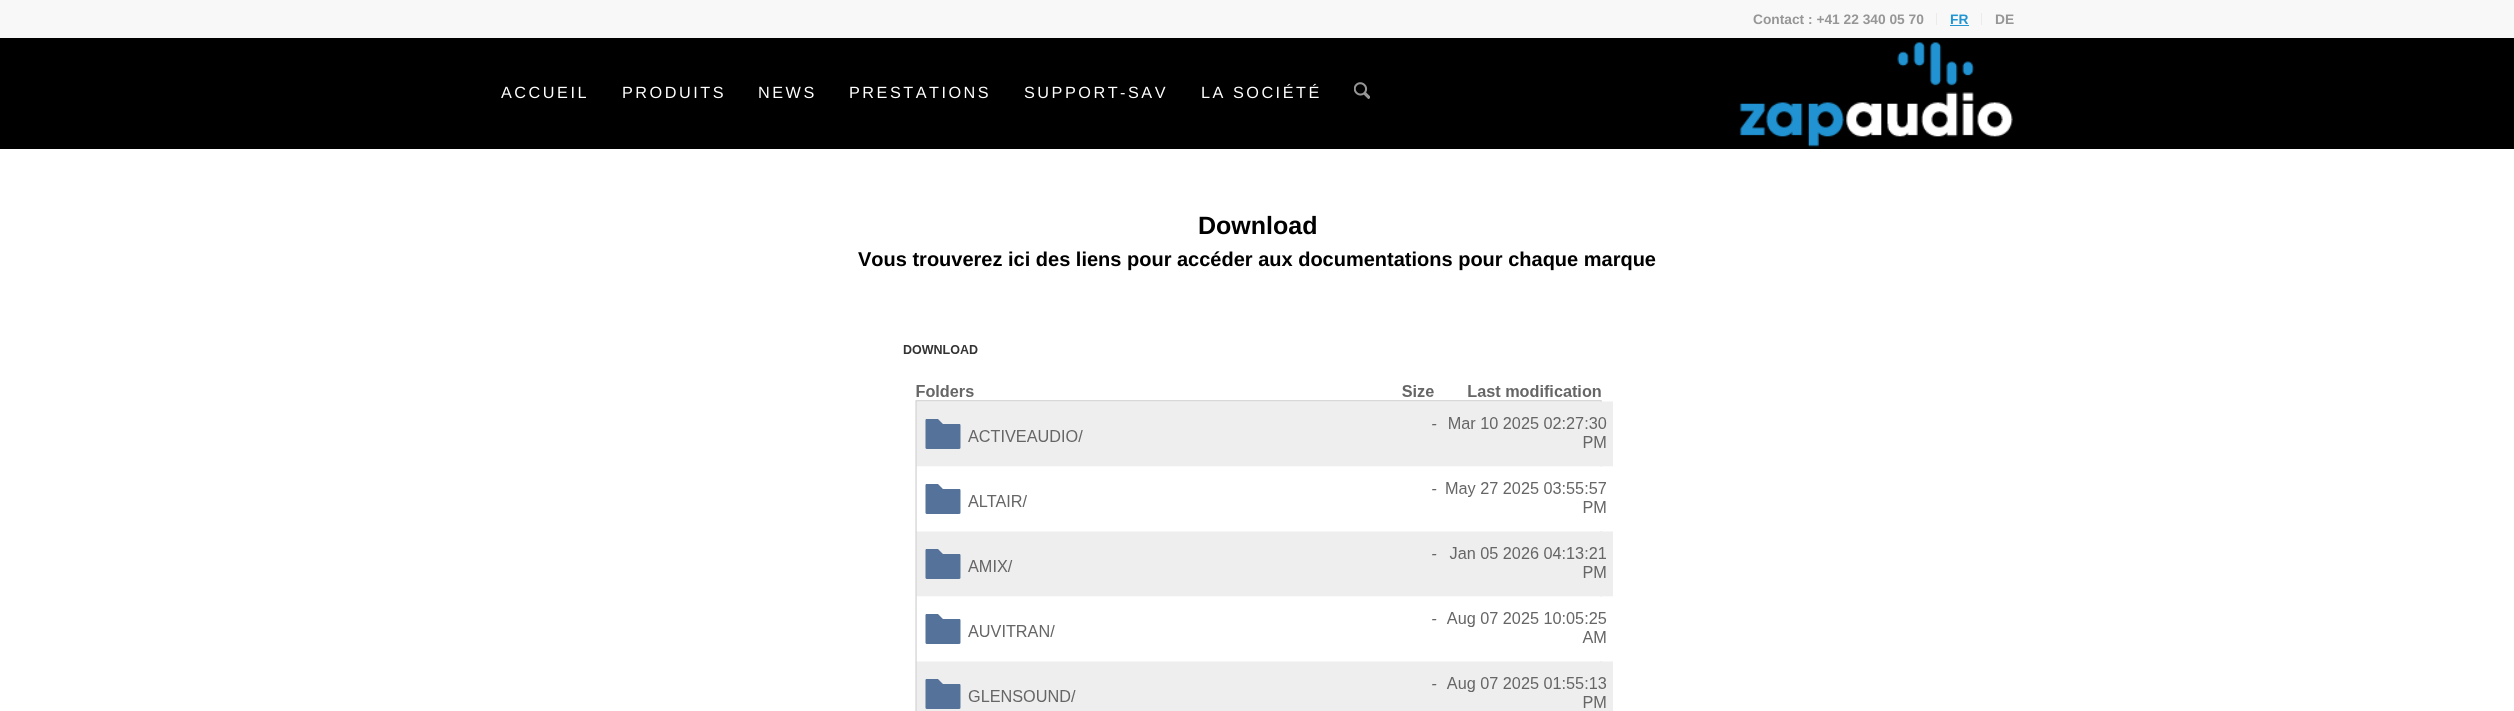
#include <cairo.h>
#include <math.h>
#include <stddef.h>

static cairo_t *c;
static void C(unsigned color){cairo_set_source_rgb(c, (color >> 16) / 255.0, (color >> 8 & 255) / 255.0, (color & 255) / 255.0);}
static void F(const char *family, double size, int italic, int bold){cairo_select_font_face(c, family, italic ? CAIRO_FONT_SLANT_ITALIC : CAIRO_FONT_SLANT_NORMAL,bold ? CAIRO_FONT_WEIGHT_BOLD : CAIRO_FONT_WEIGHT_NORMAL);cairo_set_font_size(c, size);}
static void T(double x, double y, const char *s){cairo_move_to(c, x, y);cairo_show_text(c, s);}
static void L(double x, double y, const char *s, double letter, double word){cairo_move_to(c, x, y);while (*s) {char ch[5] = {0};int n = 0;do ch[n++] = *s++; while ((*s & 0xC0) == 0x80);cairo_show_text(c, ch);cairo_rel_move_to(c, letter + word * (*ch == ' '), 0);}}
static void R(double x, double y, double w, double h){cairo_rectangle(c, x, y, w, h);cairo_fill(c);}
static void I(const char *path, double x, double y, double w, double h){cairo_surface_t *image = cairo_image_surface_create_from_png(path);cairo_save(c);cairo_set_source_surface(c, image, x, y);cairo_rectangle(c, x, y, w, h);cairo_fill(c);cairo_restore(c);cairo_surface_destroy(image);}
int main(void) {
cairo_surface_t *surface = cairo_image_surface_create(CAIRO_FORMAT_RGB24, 2514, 711);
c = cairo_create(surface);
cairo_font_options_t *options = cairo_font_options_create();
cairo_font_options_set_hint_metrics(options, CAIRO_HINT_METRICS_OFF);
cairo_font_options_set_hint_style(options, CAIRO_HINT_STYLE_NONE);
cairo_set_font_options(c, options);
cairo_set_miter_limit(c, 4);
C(0xffffff);
cairo_paint(c);
C(0xf8f8f8);
R(0,0,2514,38);
C(0xebebeb);
R(1936,13,1,12);
F("Liberation Sans",13.75,0,1);
C(0x969696);
T(1753,24,"Contact : +41 22 340 05 70");
C(0xebebeb);
R(1981,13,1,12);
C(0x2194d2);
T(1950,24,"FR");
R(1950,25,19,1);
C(0x969696);
T(1995,24,"DE");
C(0x000000);
R(0,38,2514,111);
F("Liberation Sans",16.25,0,0);
C(0xffffff);
L(501,98,"ACCUEIL",2.5,0);
L(622,98,"PRODUITS",2.5,0);
L(758,98,"NEWS",2.5,0);
L(849,98,"PRESTATIONS",2.5,0);
L(1024,98,"SUPPORT-SAV",2.5,0);
L(1201,98,"LA SOCIÉTÉ",2.5,0);
I("1.png",1354,82,16,17);
I("2.png",1739,42,274,105);
F("Liberation Sans",25,0,1);
C(0x000000);
T(1198,234,"Download");
F("Liberation Sans",20,0,1);
T(858,266,"Vous trouverez ici des liens pour accéder aux documentations pour chaque marque");
I("3.png",903,345,710,366);
cairo_surface_write_to_png(surface, "o.png");
cairo_font_options_destroy(options);
cairo_destroy(c);
cairo_surface_destroy(surface);
return 0;
}
